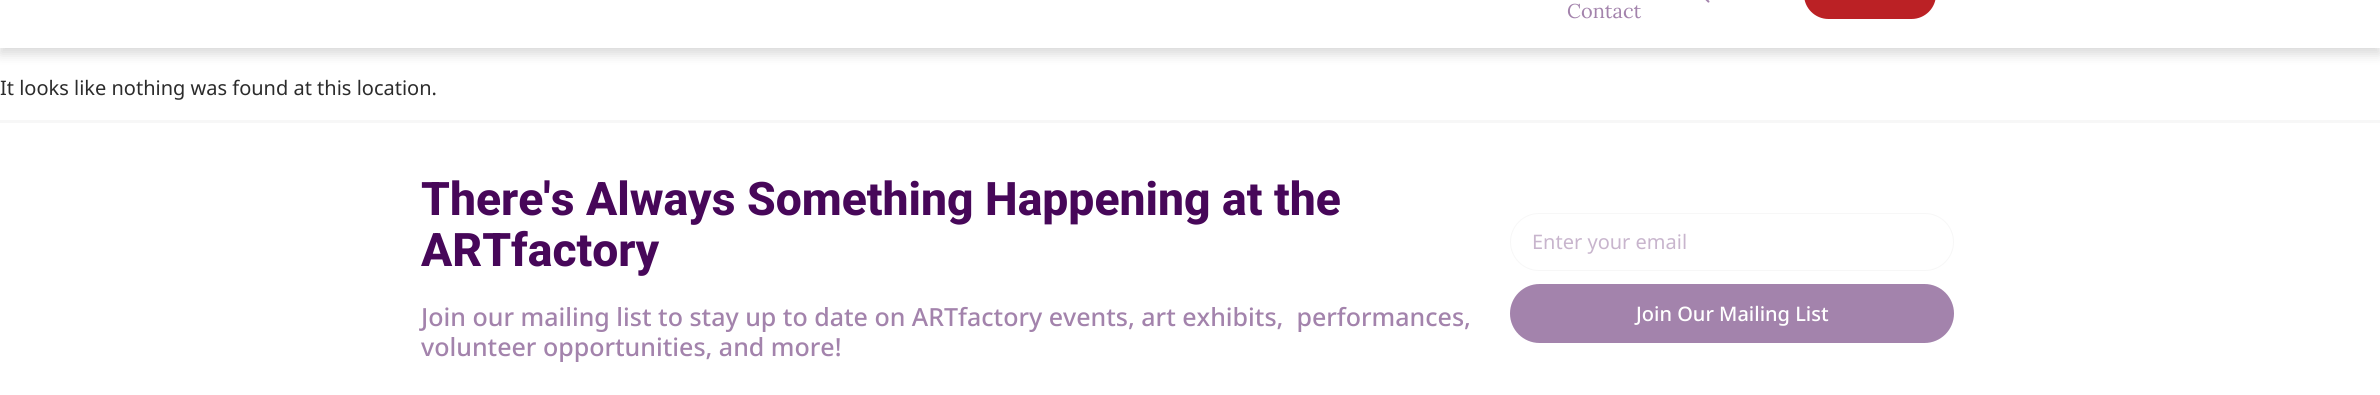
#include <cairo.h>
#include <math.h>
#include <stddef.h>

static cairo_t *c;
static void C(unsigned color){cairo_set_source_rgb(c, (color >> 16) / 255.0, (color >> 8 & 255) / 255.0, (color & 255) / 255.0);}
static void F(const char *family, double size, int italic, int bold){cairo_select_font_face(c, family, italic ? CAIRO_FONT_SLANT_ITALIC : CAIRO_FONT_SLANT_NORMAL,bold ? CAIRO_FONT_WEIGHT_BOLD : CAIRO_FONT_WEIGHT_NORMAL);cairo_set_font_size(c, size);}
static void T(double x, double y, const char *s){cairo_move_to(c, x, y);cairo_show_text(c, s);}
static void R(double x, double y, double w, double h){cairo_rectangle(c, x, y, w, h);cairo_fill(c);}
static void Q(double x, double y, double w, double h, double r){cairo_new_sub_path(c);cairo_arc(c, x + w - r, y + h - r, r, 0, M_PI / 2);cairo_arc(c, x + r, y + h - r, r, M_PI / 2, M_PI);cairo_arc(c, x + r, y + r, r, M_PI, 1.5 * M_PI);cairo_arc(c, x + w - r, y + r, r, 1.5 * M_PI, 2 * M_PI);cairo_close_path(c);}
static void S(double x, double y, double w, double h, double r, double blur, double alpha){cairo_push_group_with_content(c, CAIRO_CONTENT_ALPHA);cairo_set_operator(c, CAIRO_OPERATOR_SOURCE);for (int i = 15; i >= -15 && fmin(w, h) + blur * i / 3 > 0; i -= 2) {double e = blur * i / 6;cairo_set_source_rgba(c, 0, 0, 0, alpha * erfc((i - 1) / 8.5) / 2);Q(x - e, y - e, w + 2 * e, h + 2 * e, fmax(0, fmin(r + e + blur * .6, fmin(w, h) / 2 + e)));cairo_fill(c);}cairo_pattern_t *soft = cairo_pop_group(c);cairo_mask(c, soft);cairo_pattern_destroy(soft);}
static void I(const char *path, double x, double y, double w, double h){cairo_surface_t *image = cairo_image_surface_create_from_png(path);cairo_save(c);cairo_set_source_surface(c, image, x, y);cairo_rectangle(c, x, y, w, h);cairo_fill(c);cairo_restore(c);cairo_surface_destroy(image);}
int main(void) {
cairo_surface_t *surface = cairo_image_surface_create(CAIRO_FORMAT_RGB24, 2380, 395);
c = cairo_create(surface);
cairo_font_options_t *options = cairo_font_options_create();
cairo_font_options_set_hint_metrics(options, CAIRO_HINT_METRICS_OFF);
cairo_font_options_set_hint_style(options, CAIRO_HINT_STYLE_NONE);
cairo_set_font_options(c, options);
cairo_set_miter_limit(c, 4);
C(0xffffff);
cairo_paint(c);
cairo_save(c);
cairo_set_fill_rule(c,CAIRO_FILL_RULE_EVEN_ODD);
cairo_new_path(c);
cairo_move_to(c,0,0);
cairo_line_to(c,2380,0);
cairo_line_to(c,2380,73);
cairo_line_to(c,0,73);
cairo_close_path(c);
cairo_move_to(c,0,-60);
cairo_line_to(c,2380,-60);
cairo_line_to(c,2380,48);
cairo_line_to(c,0,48);
cairo_close_path(c);
cairo_clip(c);
C(0x000000);
S(0,-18,2380,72,0,6,.15);
cairo_restore(c);
I("1.png",1705,0,5,3);
C(0xbb2125);
Q(1804,-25,132,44,24.5);
cairo_fill(c);
F("Lora",20,0,0);
C(0xa383ac);
T(1567,18,"Contact");
F("Noto Sans",20,0,0);
C(0x2c2c2c);
T(0,95,"It looks like nothing was found at this location.");
C(0xf7f7f7);
R(0,120,2380,3);
F("Roboto ExtraBold",46.25,0,0);
C(0x470759);
T(421,215,"There's Always Something Happening at the");
T(421,266,"ARTfactory");
F("Noto Sans Medium",25,0,0);
C(0xa383ac);
T(421,326,"Join our mailing list to stay up to date on ARTfactory events, art exhibits,  performances,");
T(421,356,"volunteer opportunities, and more!");
Q(1510.5,213.5,443,57,28.5);
C(0xf7f7f7);
cairo_set_line_width(c,1);
cairo_stroke(c);
F("Noto Sans",20,0,0);
C(0xc8b5cd);
T(1532,249,"Enter your email");
C(0xa383ac);
Q(1510,284,444,59,29.5);
cairo_fill(c);
F("Noto Sans Medium",20,0,0);
C(0xffffff);
T(1636,321,"Join Our Mailing List");
cairo_surface_write_to_png(surface, "o.png");
cairo_font_options_destroy(options);
cairo_destroy(c);
cairo_surface_destroy(surface);
return 0;
}
